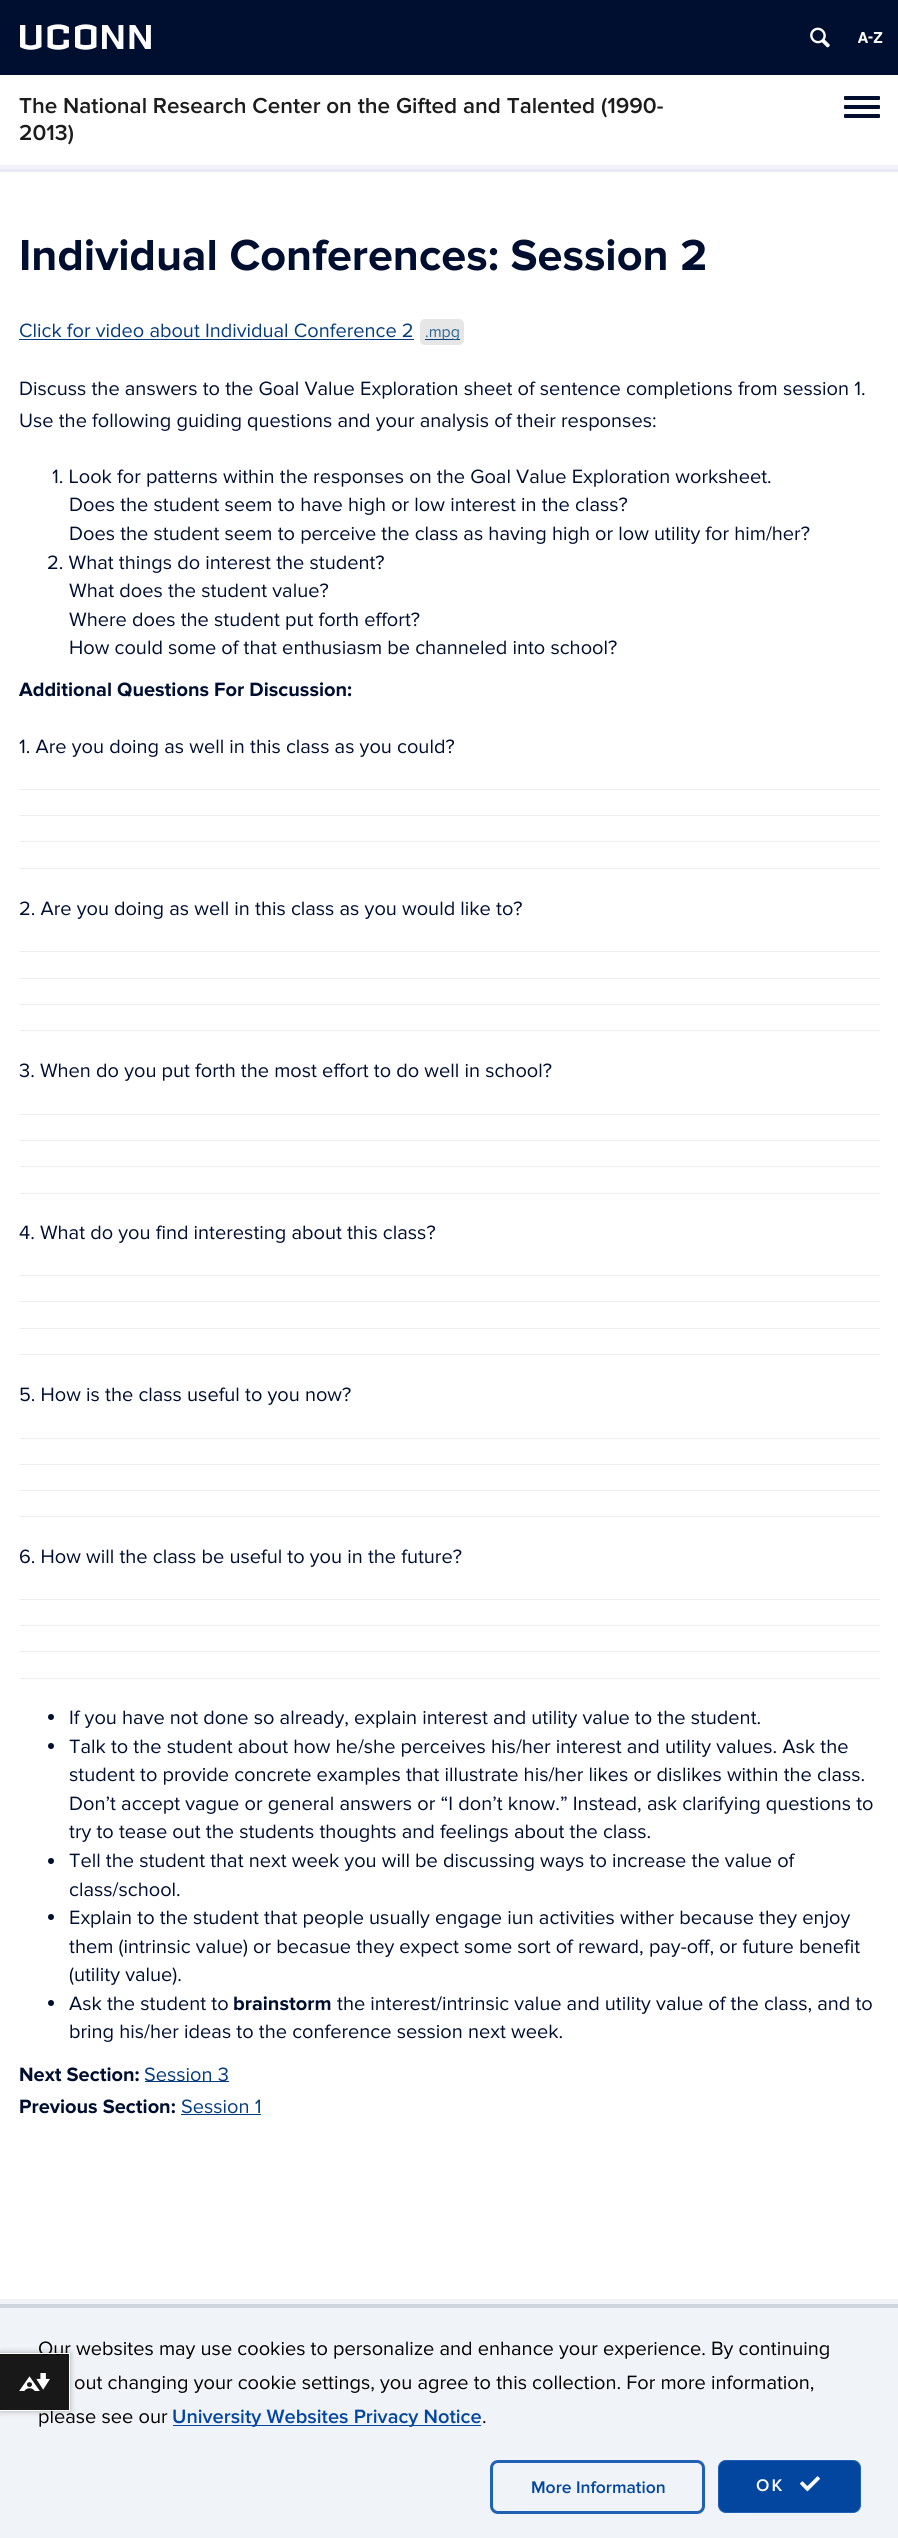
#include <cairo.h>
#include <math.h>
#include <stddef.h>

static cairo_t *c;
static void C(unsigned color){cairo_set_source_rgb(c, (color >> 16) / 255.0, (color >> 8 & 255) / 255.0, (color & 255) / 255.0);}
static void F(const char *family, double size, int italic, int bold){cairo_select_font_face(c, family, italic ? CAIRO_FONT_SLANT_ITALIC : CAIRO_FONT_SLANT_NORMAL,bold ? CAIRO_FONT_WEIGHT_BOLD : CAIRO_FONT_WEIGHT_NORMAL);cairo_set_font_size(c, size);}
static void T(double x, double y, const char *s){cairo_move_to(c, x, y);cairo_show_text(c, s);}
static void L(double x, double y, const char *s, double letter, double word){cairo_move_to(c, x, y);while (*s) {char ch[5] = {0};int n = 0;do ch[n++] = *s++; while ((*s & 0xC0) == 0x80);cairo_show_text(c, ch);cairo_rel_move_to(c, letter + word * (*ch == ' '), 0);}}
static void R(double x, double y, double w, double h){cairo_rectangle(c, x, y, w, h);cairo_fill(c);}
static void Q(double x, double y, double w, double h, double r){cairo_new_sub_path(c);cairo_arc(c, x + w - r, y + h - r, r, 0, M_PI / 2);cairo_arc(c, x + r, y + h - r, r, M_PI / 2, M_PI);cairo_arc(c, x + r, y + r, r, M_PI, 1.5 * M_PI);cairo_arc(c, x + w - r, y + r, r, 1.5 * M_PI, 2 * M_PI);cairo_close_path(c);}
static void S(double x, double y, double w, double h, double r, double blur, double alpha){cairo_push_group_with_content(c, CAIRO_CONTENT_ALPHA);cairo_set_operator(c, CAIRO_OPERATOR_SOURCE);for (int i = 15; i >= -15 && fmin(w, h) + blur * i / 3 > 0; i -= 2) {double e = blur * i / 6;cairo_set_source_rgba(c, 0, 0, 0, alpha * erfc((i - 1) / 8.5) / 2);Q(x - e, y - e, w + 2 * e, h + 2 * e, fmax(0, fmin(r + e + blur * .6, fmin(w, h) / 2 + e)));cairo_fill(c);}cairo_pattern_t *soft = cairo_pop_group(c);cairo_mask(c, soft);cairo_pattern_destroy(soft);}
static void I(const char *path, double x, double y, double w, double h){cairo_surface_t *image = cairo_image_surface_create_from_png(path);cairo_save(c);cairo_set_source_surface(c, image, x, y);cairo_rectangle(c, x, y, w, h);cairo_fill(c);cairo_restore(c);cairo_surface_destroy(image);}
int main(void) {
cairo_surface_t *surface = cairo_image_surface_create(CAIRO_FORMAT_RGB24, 898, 2538);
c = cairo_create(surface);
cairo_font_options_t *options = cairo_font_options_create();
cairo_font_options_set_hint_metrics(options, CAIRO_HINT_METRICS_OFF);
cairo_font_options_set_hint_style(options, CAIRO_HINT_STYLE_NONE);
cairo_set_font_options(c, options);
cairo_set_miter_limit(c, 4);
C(0xffffff);
cairo_paint(c);
C(0x000e2f);
R(0,0,898,75);
F("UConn",40,0,0);
C(0xffffff);
L(20,49,"UCONN",3.75,0);
I("1.png",810,27,20,21);
I("2.png",858,32,25,11);
F("Proxima Nova SemiBold",22.5,0,0);
C(0x1c1c1c);
T(19,113,"The National Research Center on the Gifted and Talented (1990-");
T(19,140,"2013)");
C(0x000e2f);
Q(844,96,36,4,1);
cairo_fill(c);
Q(844,105,36,4,1);
cairo_fill(c);
Q(844,114,36,4,1);
cairo_fill(c);
C(0xf1f3f8);
R(0,165,898,4);
C(0xe7eaf2);
R(0,169,898,3);
F("Proxima Nova",45,0,1);
C(0x000e2f);
T(19,270,"Individual Conferences: Session 2");
F("Proxima Nova",20,0,0);
C(0x053c7f);
T(19,337,"Click for video about Individual Conference 2");
R(19,339,395,1);
C(0xe6e6e6);
Q(420,319,44,26,5);
cairo_fill(c);
C(0x053c7f);
R(425,339,35,1);
F("Proxima Nova",16,0,0);
C(0x2a6792);
T(425,337,".mpg");
F("Proxima Nova",20,0,0);
C(0x000e2f);
T(19,395,"Discuss the answers to the Goal Value Exploration sheet of sentence completions from session 1.");
T(19,427,"Use the following guiding questions and your analysis of their responses:");
T(52,483,"1. Look for patterns within the responses on the Goal Value Exploration worksheet.");
T(69,511,"Does the student seem to have high or low interest in the class?");
T(69,540,"Does the student seem to perceive the class as having high or low utility for him/her?");
T(47,569,"2. What things do interest the student?");
T(69,597,"What does the student value?");
T(69,626,"Where does the student put forth effort?");
T(69,654,"How could some of that enthusiasm be channeled into school?");
F("Proxima Nova",20,0,1);
T(19,696,"Additional Questions For Discussion:");
F("Proxima Nova",20,0,0);
T(19,753,"1. Are you doing as well in this class as you could?");
C(0xeeeeee);
R(19,789,861,1);
R(19,815,861,1);
R(19,841,861,1);
R(19,868,861,1);
C(0x000e2f);
T(19,915,"2. Are you doing as well in this class as you would like to?");
C(0xeeeeee);
R(19,951,861,1);
R(19,978,861,1);
R(19,1004,861,1);
R(19,1030,861,1);
C(0x000e2f);
T(19,1077,"3. When do you put forth the most effort to do well in school?");
C(0xeeeeee);
R(19,1114,861,1);
R(19,1140,861,1);
R(19,1166,861,1);
R(19,1193,861,1);
C(0x000e2f);
T(19,1239,"4. What do you find interesting about this class?");
C(0xeeeeee);
R(19,1275,861,1);
R(19,1301,861,1);
R(19,1328,861,1);
R(19,1354,861,1);
C(0x000e2f);
T(19,1401,"5. How is the class useful to you now?");
C(0xeeeeee);
R(19,1438,861,1);
R(19,1464,861,1);
R(19,1490,861,1);
R(19,1516,861,1);
C(0x000e2f);
T(19,1563,"6. How will the class be useful to you in the future?");
C(0xeeeeee);
R(19,1599,861,1);
R(19,1625,861,1);
R(19,1651,861,1);
R(19,1678,861,1);
C(0x000e2f);
cairo_new_path(c);
cairo_arc(c,51,1717,3,0,2 * M_PI);
cairo_fill(c);
T(69,1724,"If you have not done so already, explain interest and utility value to the student.");
cairo_new_path(c);
cairo_arc(c,51,1746,3,0,2 * M_PI);
cairo_fill(c);
T(69,1753,"Talk to the student about how he/she perceives his/her interest and utility values. Ask the");
T(69,1781,"student to provide concrete examples that illustrate his/her likes or dislikes within the class.");
T(69,1810,"Don’t accept vague or general answers or “I don’t know.” Instead, ask clarifying questions to");
T(69,1838,"try to tease out the students thoughts and feelings about the class.");
cairo_new_path(c);
cairo_arc(c,51,1861,3,0,2 * M_PI);
cairo_fill(c);
T(69,1867,"Tell the student that next week you will be discussing ways to increase the value of");
T(69,1896,"class/school.");
cairo_new_path(c);
cairo_arc(c,51,1917,3,0,2 * M_PI);
cairo_fill(c);
T(69,1924,"Explain to the student that people usually engage iun activities wither because they enjoy");
T(69,1953,"them (intrinsic value) or becasue they expect some sort of reward, pay-off, or future benefit");
T(69,1981,"(utility value).");
cairo_new_path(c);
cairo_arc(c,51,2003,3,0,2 * M_PI);
cairo_fill(c);
T(69,2010,"Ask the student to");
F("Proxima Nova",20,0,1);
T(233,2010,"brainstorm");
F("Proxima Nova",20,0,0);
T(337,2010,"the interest/intrinsic value and utility value of the class, and to");
T(69,2038,"bring his/her ideas to the conference session next week.");
F("Proxima Nova",20,0,1);
T(19,2081,"Next Section:");
C(0x053c7f);
R(145,2081,84,1);
F("Proxima Nova",20,0,0);
T(144,2081,"Session 3");
F("Proxima Nova",20,0,1);
C(0x000e2f);
T(19,2113,"Previous Section:");
F("Proxima Nova",20,0,0);
C(0x053c7f);
T(181,2113,"Session 1");
R(181,2114,80,1);
C(0xf0f3f7);
R(0,2300,898,4);
C(0xedeff2);
R(0,2299,898,1);
C(0xf0f3f7);
R(0,2308,898,230);
C(0xcfd5dd);
R(0,2304,898,4);
C(0x000000);
T(38,2355,"Our websites may use cookies to personalize and enhance your experience. By continuing");
T(74,2389,"out changing your cookie settings, you agree to this collection. For more information,");
T(38,2423,"please see our");
C(0x03469f);
R(173,2425,308,1);
F("Proxima Nova SemiBold",20,0,0);
T(172,2423,"University Websites Privacy Notice");
F("Proxima Nova",20,0,0);
C(0x000000);
T(482,2423,".");
Q(491.5,2461.5,212,51,6.5);
C(0x2061b6);
cairo_set_line_width(c,3);
cairo_stroke(c);
F("Proxima Nova SemiBold",17.5,0,0);
C(0x03469f);
T(531,2493,"More Information");
Q(718.5,2460.5,142,52,7.5);
cairo_fill_preserve(c);
C(0x2061b6);
cairo_set_line_width(c,1);
cairo_stroke(c);
C(0xffffff);
L(756,2491,"OK",2,0);
I("3.png",800,2476,20,16);
cairo_save(c);
cairo_set_fill_rule(c,CAIRO_FILL_RULE_EVEN_ODD);
cairo_new_path(c);
cairo_move_to(c,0,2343);
cairo_line_to(c,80,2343);
cairo_line_to(c,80,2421);
cairo_line_to(c,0,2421);
cairo_close_path(c);
cairo_move_to(c,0,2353);
cairo_line_to(c,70,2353);
cairo_line_to(c,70,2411);
cairo_line_to(c,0,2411);
cairo_close_path(c);
cairo_clip(c);
C(0x000000);
S(0,2353,70,58,0,3,.3);
cairo_restore(c);
cairo_set_source_rgba(c,0,0,0,0.9);
R(0,2354,69,56);
C(0xffffff);
R(0,2353,70,1);
R(69,2353,1,58);
R(0,2410,70,1);
I("4.png",19,2373,31,18);
cairo_surface_write_to_png(surface, "o.png");
cairo_font_options_destroy(options);
cairo_destroy(c);
cairo_surface_destroy(surface);
return 0;
}
